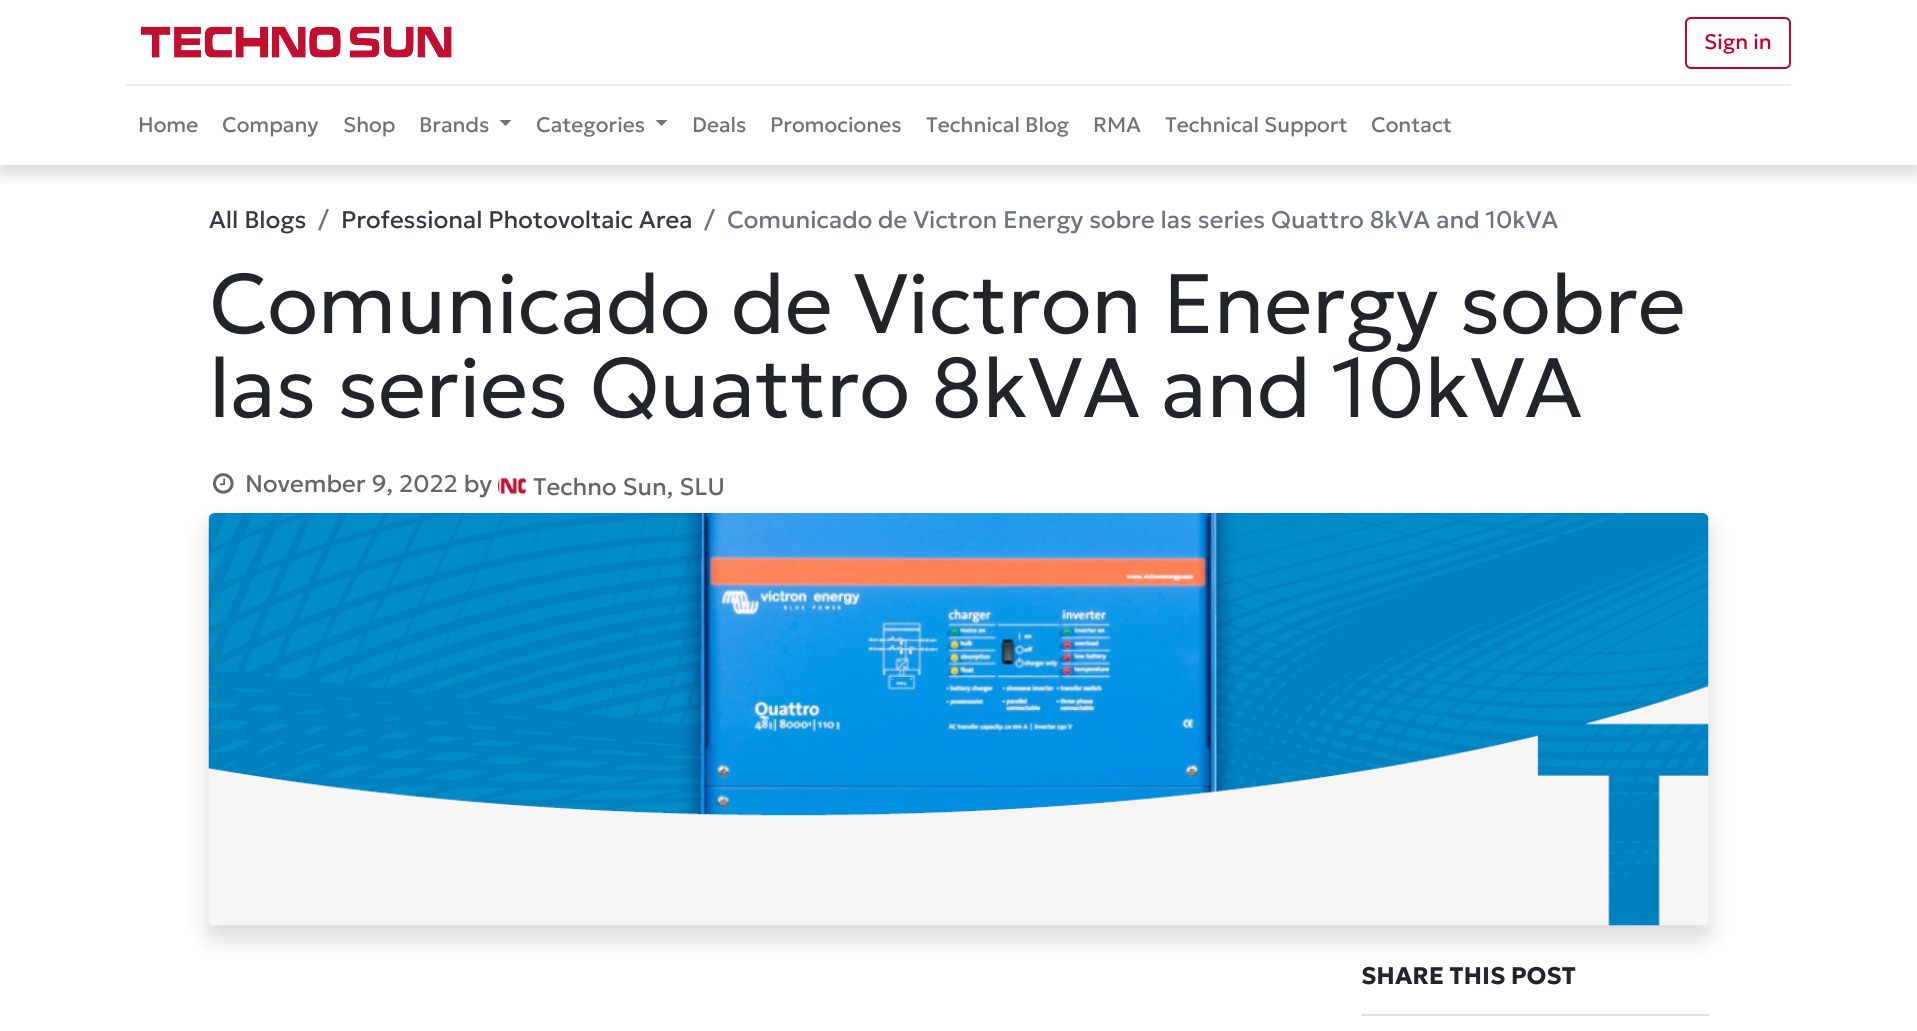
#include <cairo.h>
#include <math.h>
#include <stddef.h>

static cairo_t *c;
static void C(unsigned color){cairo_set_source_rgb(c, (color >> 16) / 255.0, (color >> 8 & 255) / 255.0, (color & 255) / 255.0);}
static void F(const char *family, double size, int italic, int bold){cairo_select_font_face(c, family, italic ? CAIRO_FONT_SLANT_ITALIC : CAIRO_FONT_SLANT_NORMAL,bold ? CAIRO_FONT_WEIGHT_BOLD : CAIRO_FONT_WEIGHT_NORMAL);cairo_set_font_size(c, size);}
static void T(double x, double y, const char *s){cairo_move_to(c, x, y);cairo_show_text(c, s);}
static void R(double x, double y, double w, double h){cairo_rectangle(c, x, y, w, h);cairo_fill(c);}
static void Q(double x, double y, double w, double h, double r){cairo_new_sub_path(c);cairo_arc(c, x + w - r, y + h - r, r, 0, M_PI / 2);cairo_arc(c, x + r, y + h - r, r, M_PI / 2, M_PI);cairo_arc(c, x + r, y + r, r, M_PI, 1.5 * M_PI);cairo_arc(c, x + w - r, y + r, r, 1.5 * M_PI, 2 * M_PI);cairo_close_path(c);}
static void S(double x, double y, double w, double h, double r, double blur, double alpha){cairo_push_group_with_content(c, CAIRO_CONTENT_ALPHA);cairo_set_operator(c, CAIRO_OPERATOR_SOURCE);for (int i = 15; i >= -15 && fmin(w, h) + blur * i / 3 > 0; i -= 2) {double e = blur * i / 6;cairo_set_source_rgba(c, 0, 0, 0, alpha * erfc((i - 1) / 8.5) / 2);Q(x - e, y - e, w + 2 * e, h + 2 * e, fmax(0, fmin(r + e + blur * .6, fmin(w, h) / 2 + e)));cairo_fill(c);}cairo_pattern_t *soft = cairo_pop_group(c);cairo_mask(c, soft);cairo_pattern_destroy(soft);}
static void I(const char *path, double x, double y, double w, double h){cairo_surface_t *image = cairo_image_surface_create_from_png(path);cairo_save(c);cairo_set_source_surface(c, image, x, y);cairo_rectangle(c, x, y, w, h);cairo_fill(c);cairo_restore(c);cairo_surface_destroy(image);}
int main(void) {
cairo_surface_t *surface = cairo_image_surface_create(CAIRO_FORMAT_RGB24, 1917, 1031);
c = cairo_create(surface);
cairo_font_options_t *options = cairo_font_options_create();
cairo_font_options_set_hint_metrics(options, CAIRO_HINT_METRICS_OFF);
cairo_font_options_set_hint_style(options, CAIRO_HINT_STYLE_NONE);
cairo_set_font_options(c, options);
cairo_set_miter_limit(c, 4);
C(0xffffff);
cairo_paint(c);
cairo_save(c);
cairo_rectangle(c,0,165,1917,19);
cairo_clip(c);
C(0x000000);
S(0,9,1917,165,0,9,.15);
cairo_restore(c);
I("1.png",140,26,312,32);
Q(1686,18,104,50,5);
C(0xc10230);
cairo_stroke(c);
F("Geologica",21,0,0);
T(1704,49,"Sign in");
C(0xe9ecef);
R(126,84,1665,2);
C(0x737373);
T(138,132,"Home");
T(222,132,"Company");
T(343,132,"Shop");
T(419,132,"Brands");
cairo_new_path(c);
cairo_move_to(c,499.5,120);
cairo_line_to(c,511.5,120);
cairo_line_to(c,505.5,126);
cairo_close_path(c);
cairo_fill(c);
T(536,132,"Categories");
cairo_new_path(c);
cairo_move_to(c,655.5,120);
cairo_line_to(c,667.5,120);
cairo_line_to(c,661.5,126);
cairo_close_path(c);
cairo_fill(c);
T(692,132,"Deals");
T(770,132,"Promociones");
T(926,132,"Technical Blog");
T(1093,132,"RMA");
T(1165,132,"Technical Support");
T(1371,132,"Contact");
F("Geologica",24,0,0);
C(0x343a40);
T(209,228,"All Blogs");
C(0x6c757d);
T(318,228,"/");
C(0x343a40);
T(341,228,"Professional Photovoltaic Area");
C(0x6c757d);
T(704,228,"/");
T(727,228,"Comunicado de Victron Energy sobre las series Quattro 8kVA and 10kVA");
F("Geologica Light",84,0,0);
C(0x212529);
T(209,333,"Comunicado de Victron Energy sobre");
T(209,417,"las series Quattro 8kVA and 10kVA");
I("2.png",213,473,21,21);
F("Geologica",24,0,0);
C(0x646669);
T(245,492,"November 9, 2022 by");
I("3.png",498,477,29,18);
T(533,495,"Techno Sun, SLU");
C(0x000000);
S(209,525,1500,413,6,12,.15);
I("4.png",208,513,1501,413);
C(0xdee2e6);
R(1361,1014,348,2);
F("Geologica",24,0,1);
C(0x212529);
T(1361,984,"SHARE THIS POST");
cairo_surface_write_to_png(surface, "o.png");
cairo_font_options_destroy(options);
cairo_destroy(c);
cairo_surface_destroy(surface);
return 0;
}
